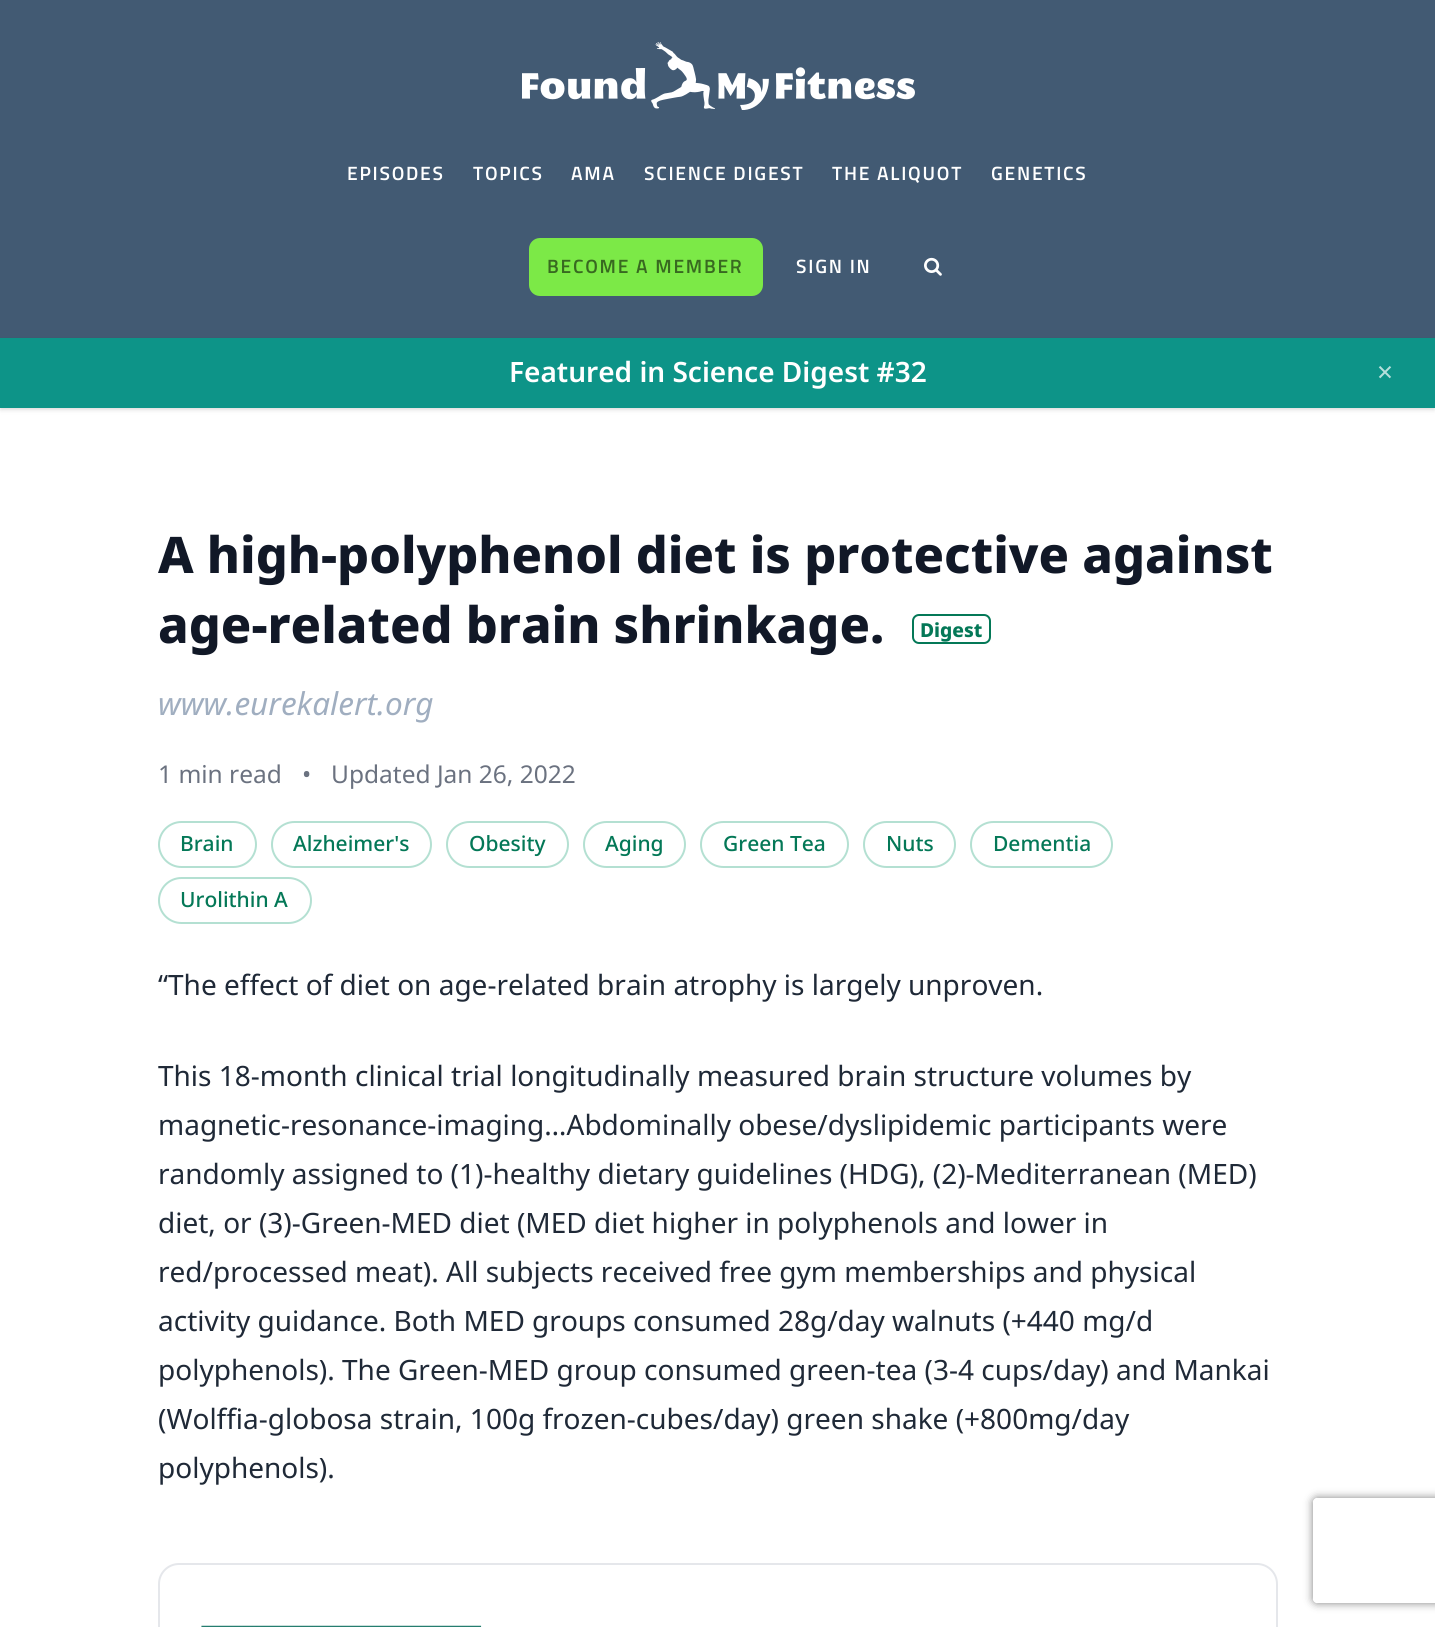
#include <cairo.h>
#include <math.h>
#include <stddef.h>

static cairo_t *c;
static void C(unsigned color){cairo_set_source_rgb(c, (color >> 16) / 255.0, (color >> 8 & 255) / 255.0, (color & 255) / 255.0);}
static void F(const char *family, double size, int italic, int bold){cairo_select_font_face(c, family, italic ? CAIRO_FONT_SLANT_ITALIC : CAIRO_FONT_SLANT_NORMAL,bold ? CAIRO_FONT_WEIGHT_BOLD : CAIRO_FONT_WEIGHT_NORMAL);cairo_set_font_size(c, size);}
static void T(double x, double y, const char *s){cairo_move_to(c, x, y);cairo_show_text(c, s);}
static void L(double x, double y, const char *s, double letter, double word){cairo_move_to(c, x, y);while (*s) {char ch[5] = {0};int n = 0;do ch[n++] = *s++; while ((*s & 0xC0) == 0x80);cairo_show_text(c, ch);cairo_rel_move_to(c, letter + word * (*ch == ' '), 0);}}
static void R(double x, double y, double w, double h){cairo_rectangle(c, x, y, w, h);cairo_fill(c);}
static void Q(double x, double y, double w, double h, double r){cairo_new_sub_path(c);cairo_arc(c, x + w - r, y + h - r, r, 0, M_PI / 2);cairo_arc(c, x + r, y + h - r, r, M_PI / 2, M_PI);cairo_arc(c, x + r, y + r, r, M_PI, 1.5 * M_PI);cairo_arc(c, x + w - r, y + r, r, 1.5 * M_PI, 2 * M_PI);cairo_close_path(c);}
static void S(double x, double y, double w, double h, double r, double blur, double alpha){cairo_push_group_with_content(c, CAIRO_CONTENT_ALPHA);cairo_set_operator(c, CAIRO_OPERATOR_SOURCE);for (int i = 15; i >= -15 && fmin(w, h) + blur * i / 3 > 0; i -= 2) {double e = blur * i / 6;cairo_set_source_rgba(c, 0, 0, 0, alpha * erfc((i - 1) / 8.5) / 2);Q(x - e, y - e, w + 2 * e, h + 2 * e, fmax(0, fmin(r + e + blur * .6, fmin(w, h) / 2 + e)));cairo_fill(c);}cairo_pattern_t *soft = cairo_pop_group(c);cairo_mask(c, soft);cairo_pattern_destroy(soft);}
static void I(const char *path, double x, double y, double w, double h){cairo_surface_t *image = cairo_image_surface_create_from_png(path);cairo_save(c);cairo_set_source_surface(c, image, x, y);cairo_rectangle(c, x, y, w, h);cairo_fill(c);cairo_restore(c);cairo_surface_destroy(image);}
int main(void) {
cairo_surface_t *surface = cairo_image_surface_create(CAIRO_FORMAT_RGB24, 1435, 1627);
c = cairo_create(surface);
cairo_font_options_t *options = cairo_font_options_create();
cairo_font_options_set_hint_metrics(options, CAIRO_HINT_METRICS_OFF);
cairo_font_options_set_hint_style(options, CAIRO_HINT_STYLE_NONE);
cairo_set_font_options(c, options);
cairo_set_miter_limit(c, 4);
C(0xffffff);
cairo_paint(c);
C(0x425a73);
R(0,0,1435,338);
I("1.png",522,42,393,68);
F("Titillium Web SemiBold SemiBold",19.25,0,0);
C(0xffffff);
L(347,180,"EPISODES",1.75,0);
L(473,180,"TOPICS",1.75,0);
L(571,180,"AMA",1.75,0);
L(644,180,"SCIENCE DIGEST",1.75,0);
L(832,180,"THE ALIQUOT",1.75,0);
L(991,180,"GENETICS",1.75,0);
C(0x7ce947);
Q(529,238,234,58,11);
cairo_fill(c);
C(0x386920);
L(547,273,"BECOME A MEMBER",1.75,0);
C(0xffffff);
L(796,273,"SIGN IN",1.75,0);
I("2.png",924,257,18,19);
C(0x000000);
S(2,341,1431,67,0,2,.1);
S(0,340,1435,70,0,2.5,.1);
C(0x0d9488);
R(0,338,1435,70);
F("Noto Sans SemiBold",28,0,0);
C(0xffffff);
T(509,382,"Featured in Science Digest #32");
F("Noto Sans",28,0,0);
C(0xb6dfdb);
T(1377,382,"×");
F("Noto Sans ExtraBold",50.4,0,0);
C(0x111827);
T(158,573,"A high-polyphenol diet is protective against");
T(158,643,"age-related brain shrinkage.");
Q(913,615,77,28,6);
C(0x047857);
cairo_stroke(c);
F("Noto Sans ExtraBold",19.25,0,0);
T(920,637,"Digest");
F("Noto Sans",31.5,1,0);
C(0xa0aec0);
T(158,715,"www.eurekalert.org");
F("Noto Sans",24.5,0,0);
C(0x6b7280);
T(158,783,"1 min read");
T(302,783,"•");
T(331,783,"Updated Jan 26, 2022");
Q(159,822,97,45,22.5);
C(0xb4e0d2);
cairo_stroke(c);
F("Noto Sans Medium",21,0,0);
C(0x047857);
T(180,851,"Brain");
Q(272,822,159,45,22.5);
C(0xb4e0d2);
cairo_stroke(c);
C(0x047857);
T(293,851,"Alzheimer's");
Q(447,822,121,45,22.5);
C(0xb4e0d2);
cairo_stroke(c);
C(0x047857);
T(469,851,"Obesity");
Q(584,822,101,45,22.5);
C(0xb4e0d2);
cairo_stroke(c);
C(0x047857);
T(605,851,"Aging");
Q(701,822,147,45,22.5);
C(0xb4e0d2);
cairo_stroke(c);
C(0x047857);
T(723,851,"Green Tea");
Q(864,822,91,45,22.5);
C(0xb4e0d2);
cairo_stroke(c);
C(0x047857);
T(886,851,"Nuts");
Q(971,822,141,45,22.5);
C(0xb4e0d2);
cairo_stroke(c);
C(0x047857);
T(993,851,"Dementia");
Q(159,878,152,45,22.5);
C(0xb4e0d2);
cairo_stroke(c);
C(0x047857);
T(180,907,"Urolithin A");
F("Noto Sans",28,0,0);
C(0x1f2937);
T(158,995,"“The effect of diet on age-related brain atrophy is largely unproven.");
T(158,1086,"This 18-month clinical trial longitudinally measured brain structure volumes by");
T(158,1135,"magnetic-resonance-imaging…Abdominally obese/dyslipidemic participants were");
T(158,1184,"randomly assigned to (1)-healthy dietary guidelines (HDG), (2)-Mediterranean (MED)");
T(158,1233,"diet, or (3)-Green-MED diet (MED diet higher in polyphenols and lower in");
T(158,1282,"red/processed meat). All subjects received free gym memberships and physical");
T(158,1331,"activity guidance. Both MED groups consumed 28g/day walnuts (+440 mg/d");
T(158,1380,"polyphenols). The Green-MED group consumed green-tea (3-4 cups/day) and Mankai");
T(158,1429,"(Wolffia-globosa strain, 100g frozen-cubes/day) green shake (+800mg/day");
T(158,1478,"polyphenols).");
Q(159,1564,1118,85,20);
C(0xe5e7eb);
cairo_stroke(c);
I("3.png",201,1625,281,2);
cairo_save(c);
cairo_set_fill_rule(c,CAIRO_FILL_RULE_EVEN_ODD);
cairo_new_path(c);
cairo_move_to(c,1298,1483);
cairo_line_to(c,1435,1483);
cairo_line_to(c,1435,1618);
cairo_line_to(c,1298,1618);
cairo_close_path(c);
cairo_move_to(c,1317,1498);
cairo_line_to(c,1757,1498);
cairo_curve_to(c,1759,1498,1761,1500,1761,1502);
cairo_line_to(c,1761,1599);
cairo_curve_to(c,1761,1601,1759,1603,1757,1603);
cairo_line_to(c,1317,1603);
cairo_curve_to(c,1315,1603,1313,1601,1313,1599);
cairo_line_to(c,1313,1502);
cairo_curve_to(c,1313,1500,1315,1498,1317,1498);
cairo_close_path(c);
cairo_clip(c);
C(0x808080);
S(1313,1498,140,105,4,4.5,1);
cairo_restore(c);
cairo_surface_write_to_png(surface, "o.png");
cairo_font_options_destroy(options);
cairo_destroy(c);
cairo_surface_destroy(surface);
return 0;
}
